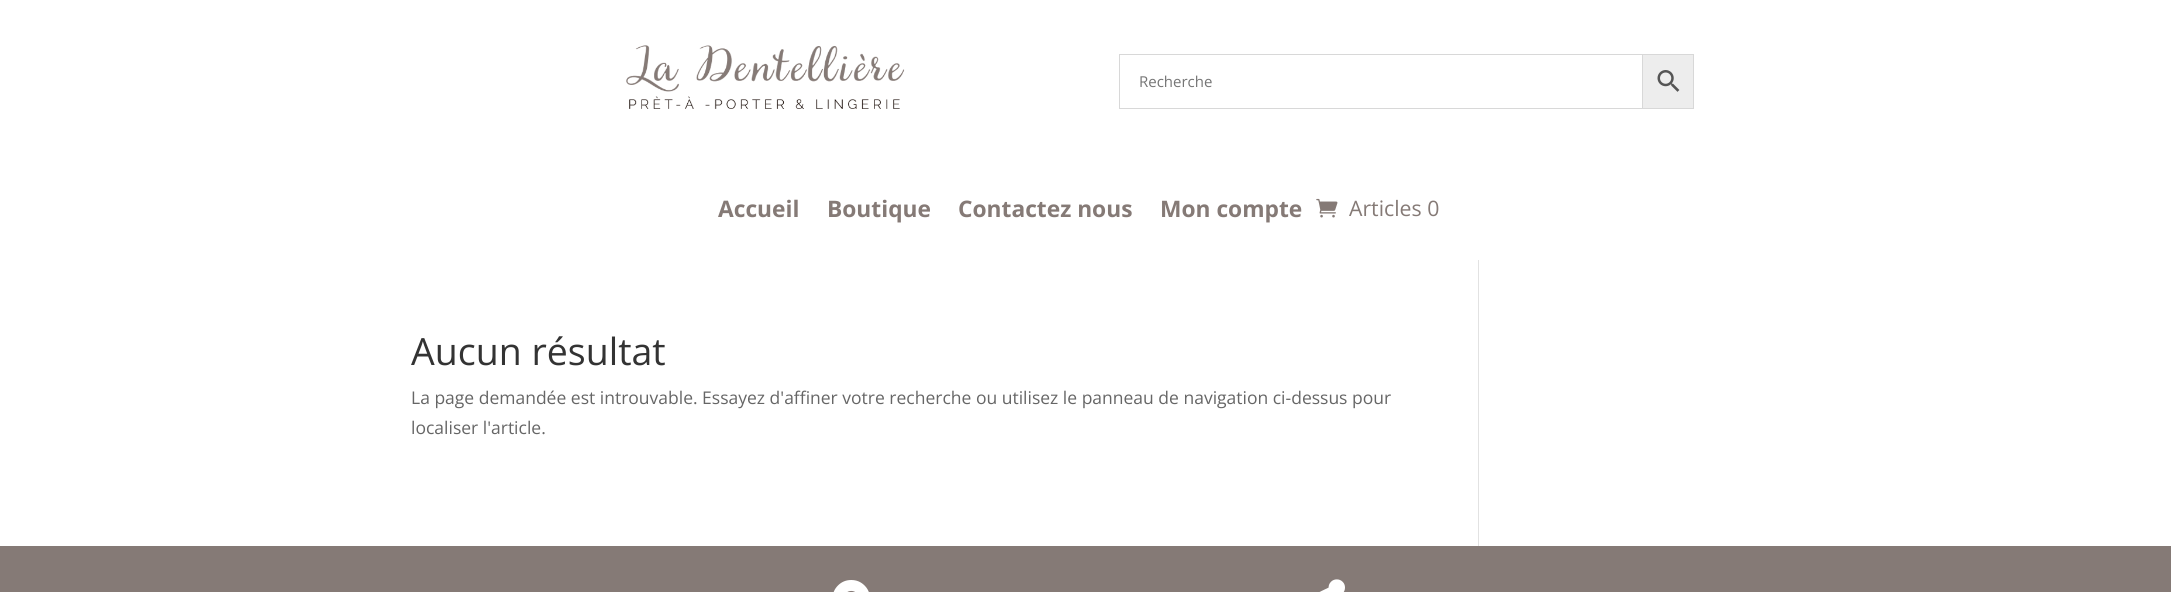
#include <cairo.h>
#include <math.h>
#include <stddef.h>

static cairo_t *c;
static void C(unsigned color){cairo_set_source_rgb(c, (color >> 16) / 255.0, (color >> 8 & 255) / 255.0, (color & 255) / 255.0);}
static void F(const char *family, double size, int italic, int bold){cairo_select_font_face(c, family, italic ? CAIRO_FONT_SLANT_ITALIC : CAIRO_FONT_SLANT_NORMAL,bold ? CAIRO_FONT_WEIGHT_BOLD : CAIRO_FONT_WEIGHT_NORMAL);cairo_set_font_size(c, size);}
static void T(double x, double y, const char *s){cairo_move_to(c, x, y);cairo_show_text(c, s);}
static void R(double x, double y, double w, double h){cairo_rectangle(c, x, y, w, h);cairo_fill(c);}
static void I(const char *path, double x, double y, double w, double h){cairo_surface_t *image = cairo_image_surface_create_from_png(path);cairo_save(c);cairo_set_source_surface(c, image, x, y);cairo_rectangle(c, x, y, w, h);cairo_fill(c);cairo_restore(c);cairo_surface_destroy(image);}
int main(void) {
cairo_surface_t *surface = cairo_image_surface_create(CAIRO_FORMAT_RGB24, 2171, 592);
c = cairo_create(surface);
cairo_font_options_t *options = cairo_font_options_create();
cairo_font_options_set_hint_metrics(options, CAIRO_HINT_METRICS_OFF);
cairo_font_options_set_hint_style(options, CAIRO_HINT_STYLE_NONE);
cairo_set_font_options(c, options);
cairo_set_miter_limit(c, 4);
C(0xffffff);
cairo_paint(c);
I("1.png",626,45,279,64);
C(0xededed);
R(1643,55,50,53);
cairo_rectangle(c,1641.5,54.5,52,54);
C(0xd8d8d8);
cairo_set_line_width(c,1);
cairo_stroke(c);
C(0xffffff);
R(1641,55,1,53);
cairo_rectangle(c,1119.5,54.5,523,54);
C(0xd8d8d8);
cairo_stroke(c);
F("Open Sans",15,0,0);
C(0x757575);
T(1139,87,"Recherche");
I("2.png",1657,70,23,22);
F("Open Sans",22.75,0,1);
C(0x857a76);
T(718,217,"Accueil");
T(827,217,"Boutique");
T(958,217,"Contactez nous");
T(1160,217,"Mon compte");
I("3.png",1316,198,22,20);
F("Open Sans",21.25,0,0);
T(1349,216,"Articles 0");
F("Open Sans",37.5,0,0);
C(0x333333);
T(411,365,"Aucun résultat");
F("Open Sans",17.5,0,0);
C(0x666666);
T(411,404,"La page demandée est introuvable. Essayez d'affiner votre recherche ou utilisez le panneau de navigation ci-dessus pour");
T(411,434,"localiser l'article.");
C(0xe2e2e2);
R(1478,260,1,286);
C(0x857a76);
R(0,546,2171,46);
I("4.png",833,580,36,12);
I("5.png",1319,579,26,13);
cairo_surface_write_to_png(surface, "o.png");
cairo_font_options_destroy(options);
cairo_destroy(c);
cairo_surface_destroy(surface);
return 0;
}
